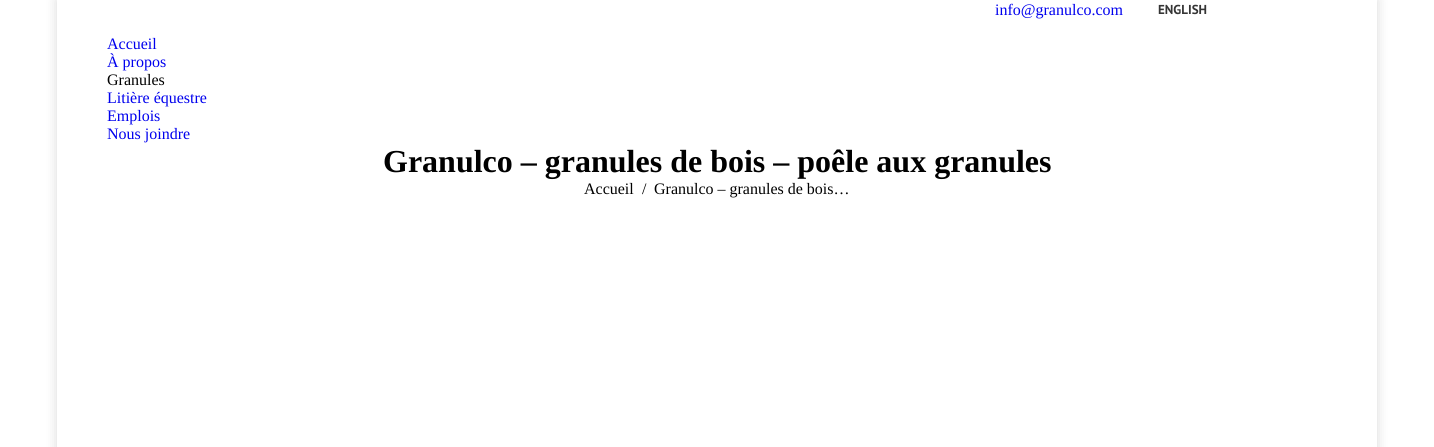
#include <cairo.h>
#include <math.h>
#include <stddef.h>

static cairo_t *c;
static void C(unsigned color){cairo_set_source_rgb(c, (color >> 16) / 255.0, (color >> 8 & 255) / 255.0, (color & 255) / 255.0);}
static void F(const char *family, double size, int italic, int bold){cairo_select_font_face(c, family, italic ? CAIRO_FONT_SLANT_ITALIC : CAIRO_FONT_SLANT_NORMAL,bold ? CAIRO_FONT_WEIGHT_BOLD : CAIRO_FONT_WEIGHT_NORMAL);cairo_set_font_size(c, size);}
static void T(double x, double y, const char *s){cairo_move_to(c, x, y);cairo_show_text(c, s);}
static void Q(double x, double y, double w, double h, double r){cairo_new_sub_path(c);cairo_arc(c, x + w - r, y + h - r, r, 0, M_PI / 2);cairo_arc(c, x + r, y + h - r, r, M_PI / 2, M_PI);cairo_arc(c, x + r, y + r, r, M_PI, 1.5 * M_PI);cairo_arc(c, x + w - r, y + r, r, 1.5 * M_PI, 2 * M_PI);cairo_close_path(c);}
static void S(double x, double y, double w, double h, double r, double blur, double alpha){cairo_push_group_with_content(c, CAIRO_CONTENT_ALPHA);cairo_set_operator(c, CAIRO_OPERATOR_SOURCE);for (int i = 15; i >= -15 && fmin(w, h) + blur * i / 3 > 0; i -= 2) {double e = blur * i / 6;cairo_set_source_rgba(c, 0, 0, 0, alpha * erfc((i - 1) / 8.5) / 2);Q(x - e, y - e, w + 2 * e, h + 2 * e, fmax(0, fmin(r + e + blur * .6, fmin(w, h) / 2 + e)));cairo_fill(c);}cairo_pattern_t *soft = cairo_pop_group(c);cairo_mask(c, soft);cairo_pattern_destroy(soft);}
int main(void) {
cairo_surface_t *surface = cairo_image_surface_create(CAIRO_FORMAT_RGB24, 1434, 447);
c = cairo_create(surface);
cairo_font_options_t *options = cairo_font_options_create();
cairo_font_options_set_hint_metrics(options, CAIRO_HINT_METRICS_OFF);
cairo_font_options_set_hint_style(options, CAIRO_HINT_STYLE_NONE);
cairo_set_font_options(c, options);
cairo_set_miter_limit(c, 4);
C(0xffffff);
cairo_paint(c);
cairo_save(c);
cairo_set_fill_rule(c,CAIRO_FILL_RULE_EVEN_ODD);
cairo_new_path(c);
cairo_move_to(c,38,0);
cairo_line_to(c,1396,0);
cairo_line_to(c,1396,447);
cairo_line_to(c,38,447);
cairo_close_path(c);
cairo_move_to(c,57,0);
cairo_line_to(c,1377,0);
cairo_line_to(c,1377,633);
cairo_line_to(c,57,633);
cairo_close_path(c);
cairo_clip(c);
C(0x000000);
S(57,0,1320,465,0,6,.15);
cairo_restore(c);
F("Liberation Serif",16,0,0);
C(0x0000ee);
T(995,15,"info@granulco.com");
F("PT Sans",13,0,1);
C(0x353535);
T(1158,14,"ENGLISH");
F("Liberation Serif",16,0,0);
C(0x0000ee);
T(107,49,"Accueil");
T(107,67,"À propos");
C(0x000000);
T(107,85,"Granules");
C(0x0000ee);
T(107,103,"Litière équestre");
T(107,121,"Emplois");
T(107,139,"Nous joindre");
F("Liberation Serif",32,0,1);
C(0x000000);
T(383,172,"Granulco – granules de bois – poêle aux granules");
F("Liberation Serif",16,0,0);
T(584,194,"Accueil");
T(642,194,"/");
T(654,194,"Granulco – granules de bois…");
cairo_surface_write_to_png(surface, "o.png");
cairo_font_options_destroy(options);
cairo_destroy(c);
cairo_surface_destroy(surface);
return 0;
}
